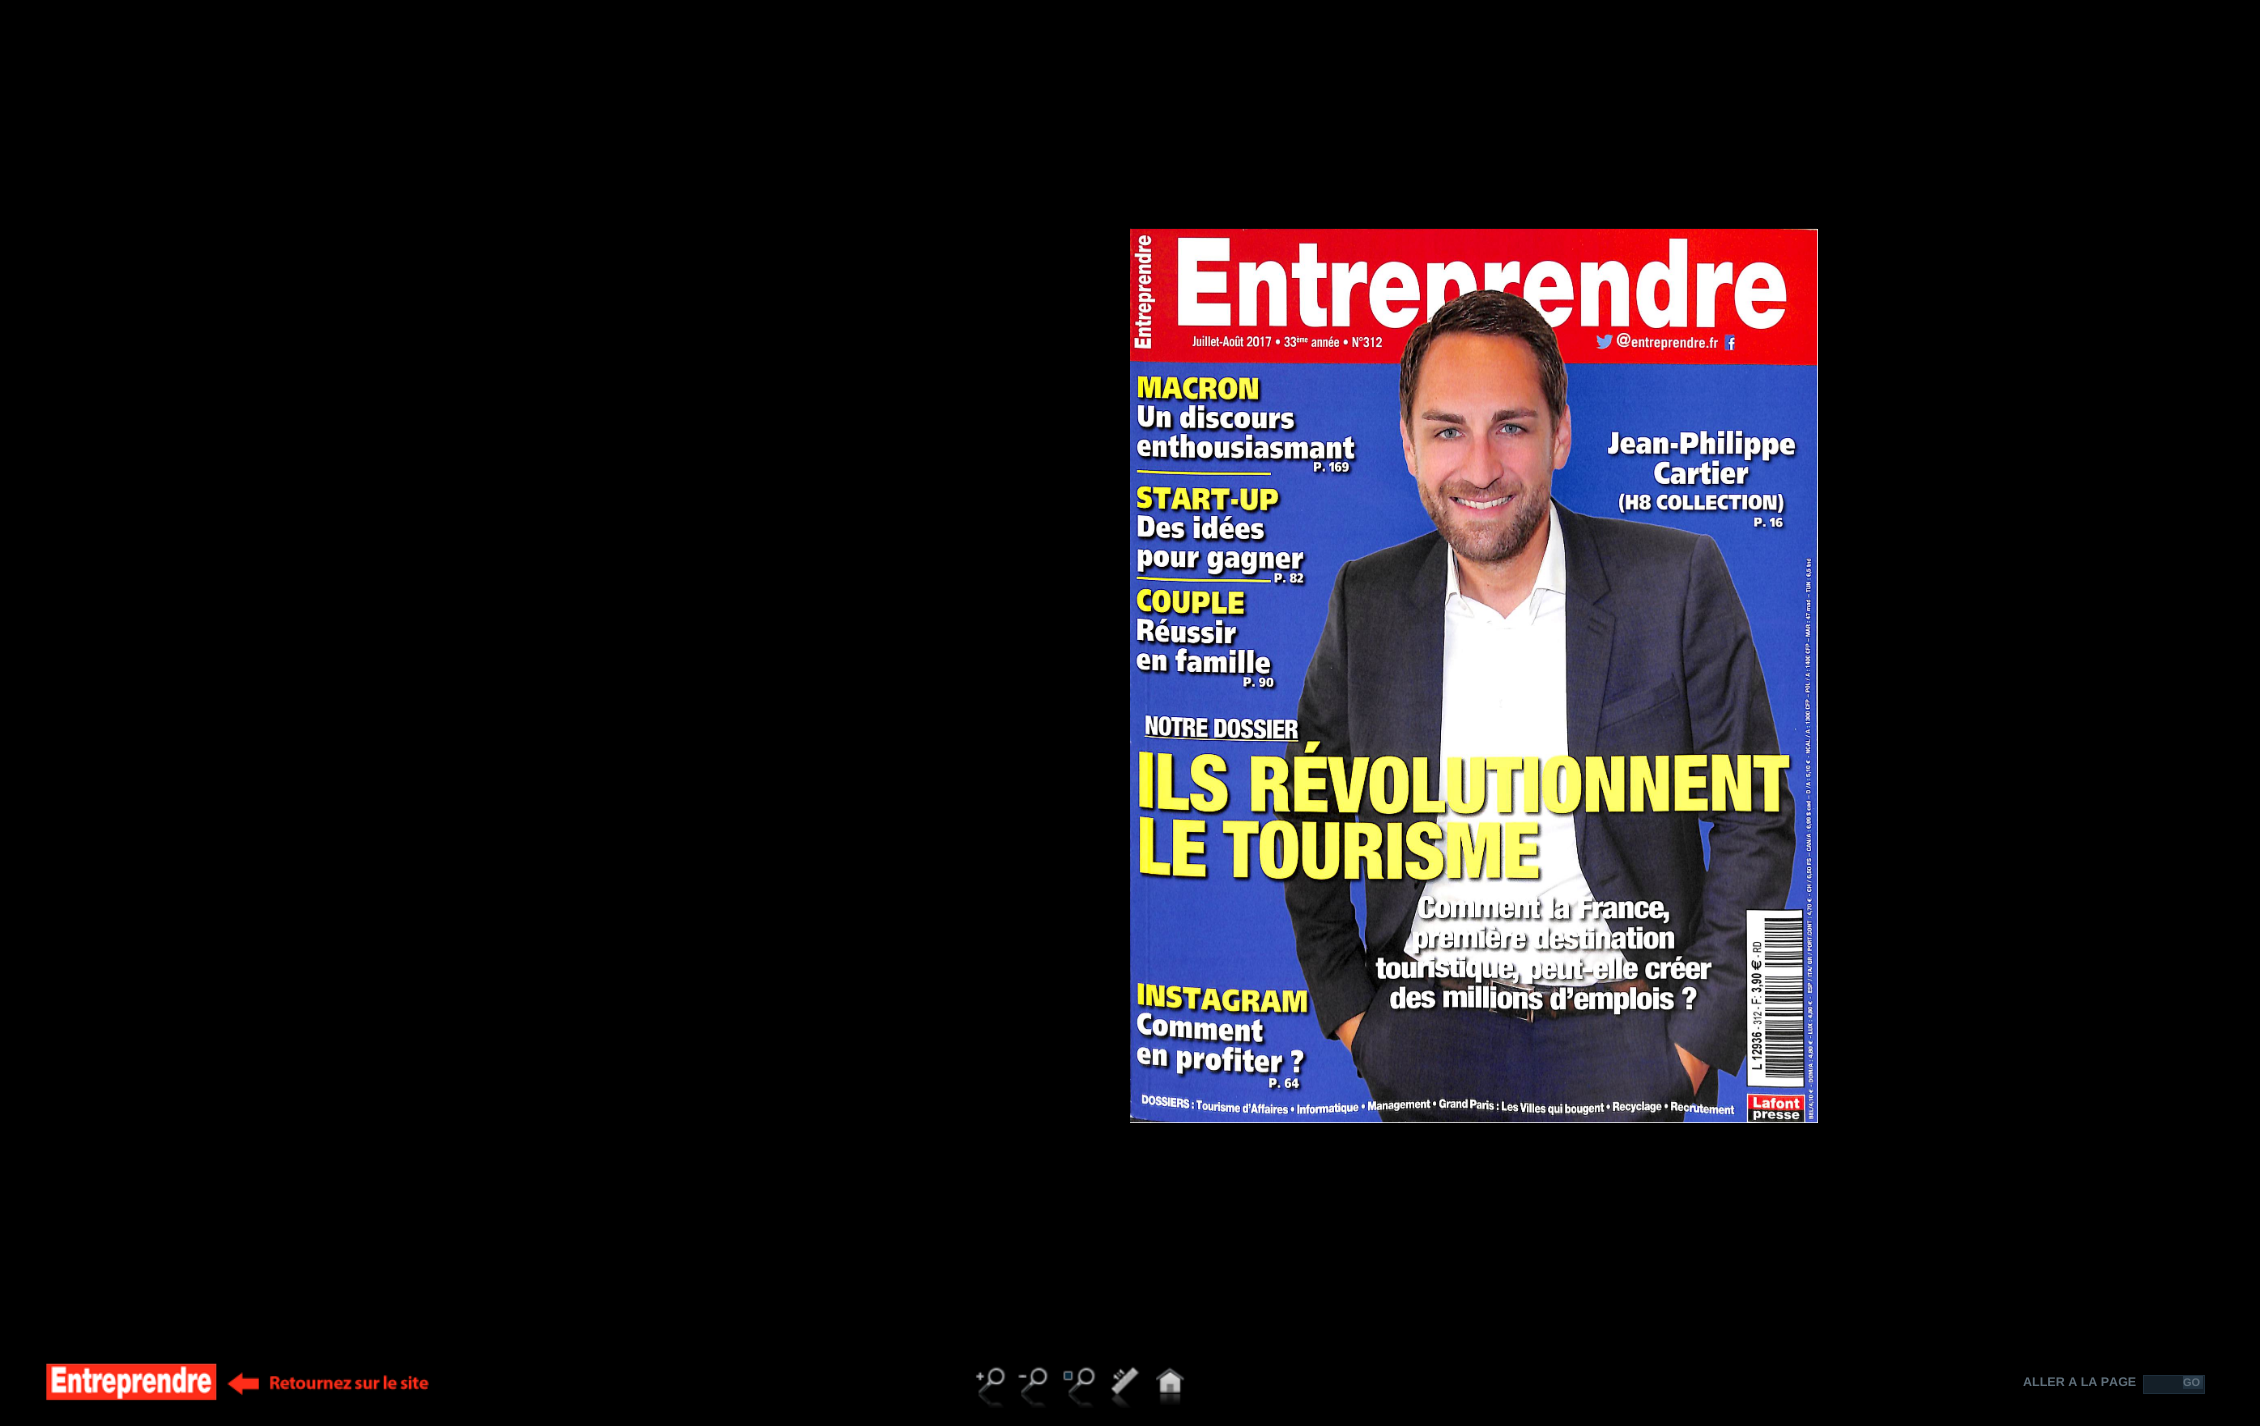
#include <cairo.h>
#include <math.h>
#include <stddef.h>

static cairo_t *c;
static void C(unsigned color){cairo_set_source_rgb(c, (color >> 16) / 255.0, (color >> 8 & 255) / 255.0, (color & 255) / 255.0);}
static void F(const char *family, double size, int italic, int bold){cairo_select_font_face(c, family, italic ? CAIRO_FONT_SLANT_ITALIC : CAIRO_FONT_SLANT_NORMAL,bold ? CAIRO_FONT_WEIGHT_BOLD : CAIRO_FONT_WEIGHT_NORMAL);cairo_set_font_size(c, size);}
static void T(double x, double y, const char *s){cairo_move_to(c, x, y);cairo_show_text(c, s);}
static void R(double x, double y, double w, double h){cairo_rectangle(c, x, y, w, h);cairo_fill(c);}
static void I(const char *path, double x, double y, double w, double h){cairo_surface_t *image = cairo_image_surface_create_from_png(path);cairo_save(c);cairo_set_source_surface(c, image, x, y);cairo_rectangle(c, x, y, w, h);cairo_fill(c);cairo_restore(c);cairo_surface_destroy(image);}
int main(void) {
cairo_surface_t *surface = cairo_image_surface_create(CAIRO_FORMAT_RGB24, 2260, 1426);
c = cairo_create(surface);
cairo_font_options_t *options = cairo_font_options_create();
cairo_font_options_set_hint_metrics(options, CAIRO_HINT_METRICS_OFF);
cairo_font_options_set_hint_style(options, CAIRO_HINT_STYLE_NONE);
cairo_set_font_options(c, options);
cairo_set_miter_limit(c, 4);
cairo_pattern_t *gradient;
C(0x000000);
cairo_paint(c);
I("1.png",1130,228,687,1);
C(0xffffff);
R(1130,229,688,894);
I("2.png",1130,228,688,895);
I("3.png",46,1363,383,38);
I("4.png",975,1366,31,42);
I("5.png",1018,1366,31,42);
I("6.png",1063,1366,33,42);
I("7.png",1111,1366,29,42);
I("8.png",1156,1367,29,38);
F("Liberation Sans",12.5,0,1);
C(0x5f6f7b);
T(2023,1386,"ALLER A LA PAGE");
C(0x141f28);
cairo_rectangle(c,2143.5,1375.5,61,18);
cairo_fill_preserve(c);
C(0x1e2f3c);
cairo_set_line_width(c,1);
cairo_stroke(c);
gradient = cairo_pattern_create_linear(2193,1376,2193,1389);
cairo_pattern_add_color_stop_rgba(gradient,0,0.169,0.243,0.302,1);
cairo_pattern_add_color_stop_rgba(gradient,1,0.122,0.188,0.239,1);
cairo_set_source(c,gradient);
cairo_pattern_destroy(gradient);
R(2183,1376,20,13);
F("Liberation Sans",11,0,1);
C(0x5f6f7b);
T(2183,1386,"GO");
cairo_surface_write_to_png(surface, "o.png");
cairo_font_options_destroy(options);
cairo_destroy(c);
cairo_surface_destroy(surface);
return 0;
}
